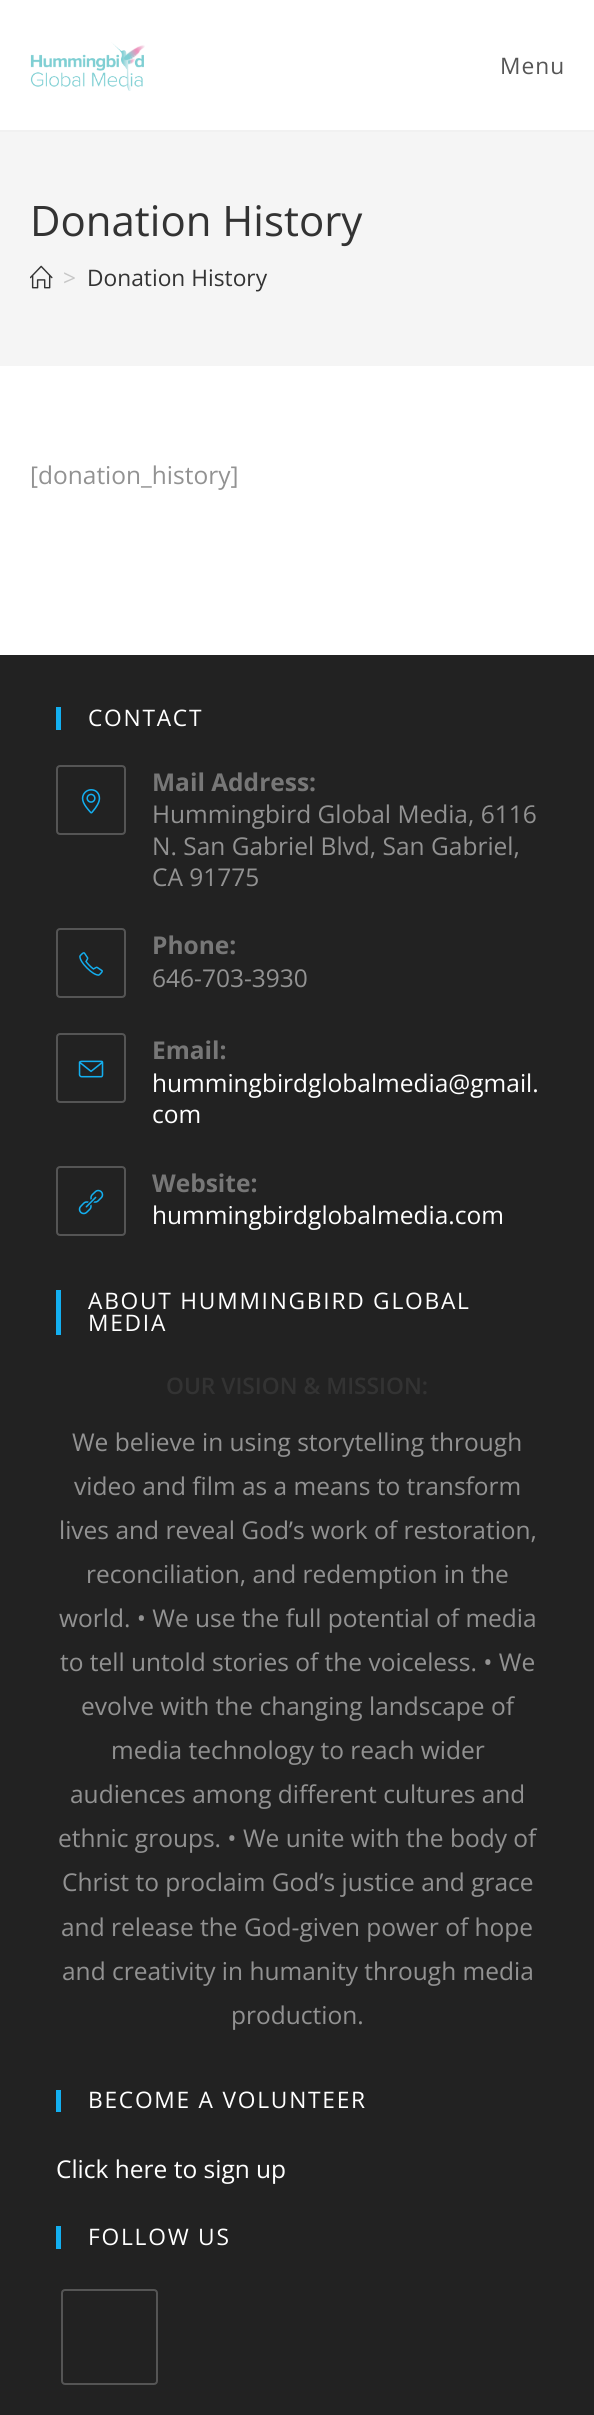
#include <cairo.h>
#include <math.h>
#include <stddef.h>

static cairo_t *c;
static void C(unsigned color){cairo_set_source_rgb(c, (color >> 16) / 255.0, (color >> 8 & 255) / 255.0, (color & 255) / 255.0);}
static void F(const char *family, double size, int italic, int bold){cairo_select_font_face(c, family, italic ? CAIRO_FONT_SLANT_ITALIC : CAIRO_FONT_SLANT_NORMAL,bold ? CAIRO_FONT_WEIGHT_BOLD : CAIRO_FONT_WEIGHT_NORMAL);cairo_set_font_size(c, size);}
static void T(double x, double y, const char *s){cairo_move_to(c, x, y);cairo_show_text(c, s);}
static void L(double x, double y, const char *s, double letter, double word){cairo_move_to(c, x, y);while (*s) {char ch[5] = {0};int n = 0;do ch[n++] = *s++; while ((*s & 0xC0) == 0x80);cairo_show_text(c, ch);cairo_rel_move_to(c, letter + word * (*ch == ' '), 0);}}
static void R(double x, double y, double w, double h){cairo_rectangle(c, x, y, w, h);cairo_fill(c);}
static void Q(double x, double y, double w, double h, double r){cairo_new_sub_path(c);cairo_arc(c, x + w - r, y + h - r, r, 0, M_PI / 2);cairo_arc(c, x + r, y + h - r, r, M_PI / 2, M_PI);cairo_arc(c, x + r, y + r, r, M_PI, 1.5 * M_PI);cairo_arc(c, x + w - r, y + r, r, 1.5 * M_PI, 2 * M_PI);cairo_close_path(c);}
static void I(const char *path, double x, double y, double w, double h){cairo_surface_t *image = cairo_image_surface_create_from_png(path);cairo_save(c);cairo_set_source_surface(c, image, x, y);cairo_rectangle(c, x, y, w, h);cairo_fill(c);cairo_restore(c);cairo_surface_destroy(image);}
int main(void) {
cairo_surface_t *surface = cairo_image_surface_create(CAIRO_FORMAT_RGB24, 594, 2415);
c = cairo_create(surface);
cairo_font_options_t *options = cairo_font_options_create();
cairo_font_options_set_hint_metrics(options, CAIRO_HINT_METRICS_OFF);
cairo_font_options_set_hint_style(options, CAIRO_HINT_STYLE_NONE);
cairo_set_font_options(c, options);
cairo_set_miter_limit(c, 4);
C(0xffffff);
cairo_paint(c);
C(0xf1f1f1);
R(0,130,594,2);
I("1.png",30,42,115,49);
F("Open Sans",22.75,0,0);
C(0x555555);
L(500,74,"Menu",1,0);
C(0xf5f5f5);
R(0,132,594,234);
F("Open Sans",42,0,0);
C(0x333333);
T(30,236,"Donation History");
I("2.png",30,265,23,24);
F("Open Sans",22.75,0,0);
C(0xc6c6c6);
T(63,286,">");
C(0x333333);
T(87,286,"Donation History");
F("Open Sans",24.5,0,0);
C(0x929292);
T(30,484,"[donation_history]");
C(0x222222);
R(0,655,594,1760);
C(0x13aff0);
R(56,707,5,23);
F("Open Sans",22.75,0,0);
C(0xffffff);
L(88,726,"CONTACT",1.75,0);
Q(57,766,68,68,3);
C(0x555555);
cairo_stroke(c);
I("3.png",81,789,20,25);
F("Open Sans",24.5,0,1);
C(0x777777);
T(152,791,"Mail Address:");
F("Open Sans",24.5,0,0);
C(0x929292);
T(152,823,"Hummingbird Global Media, 6116");
T(152,855,"N. San Gabriel Blvd, San Gabriel,");
T(152,886,"CA 91775");
Q(57,929,68,68,3);
C(0x555555);
cairo_stroke(c);
I("4.png",79,952,24,24);
F("Open Sans",24.5,0,1);
C(0x777777);
T(152,954,"Phone:");
F("Open Sans",24.5,0,0);
C(0x929292);
T(152,987,"646-703-3930");
Q(57,1034,68,68,3);
C(0x555555);
cairo_stroke(c);
I("5.png",78,1060,26,18);
F("Open Sans",24.5,0,1);
C(0x777777);
T(152,1059,"Email:");
F("Open Sans",24.5,0,0);
C(0xffffff);
T(152,1092,"hummingbirdglobalmedia@gmail.");
T(152,1123,"com");
Q(57,1167,68,68,3);
C(0x555555);
cairo_stroke(c);
I("6.png",78,1189,26,26);
F("Open Sans",24.5,0,1);
C(0x777777);
T(152,1192,"Website:");
F("Open Sans",24.5,0,0);
C(0xffffff);
T(152,1224,"hummingbirdglobalmedia.com");
C(0x13aff0);
R(56,1290,5,45);
F("Open Sans",22.75,0,0);
C(0xffffff);
L(88,1309,"ABOUT HUMMINGBIRD GLOBAL",1.75,0);
L(88,1331,"MEDIA",1.75,0);
F("Open Sans SemiBold",22.75,0,0);
C(0x333333);
T(166,1394,"OUR VISION & MISSION:");
F("Open Sans",24.5,0,0);
C(0x929292);
T(72,1451,"We believe in using storytelling through");
T(74,1495,"video and film as a means to transform");
T(59,1539,"lives and reveal God’s work of restoration,");
T(86,1583,"reconciliation, and redemption in the");
T(59,1627,"world. • We use the full potential of media");
T(60,1671,"to tell untold stories of the voiceless. • We");
T(81,1715,"evolve with the changing landscape of");
T(111,1759,"media technology to reach wider");
T(70,1803,"audiences among different cultures and");
T(58,1847,"ethnic groups. • We unite with the body of");
T(62,1891,"Christ to proclaim God’s justice and grace");
T(61,1936,"and release the God-given power of hope");
T(62,1980,"and creativity in humanity through media");
T(231,2024,"production.");
C(0x13aff0);
R(56,2090,5,22);
F("Open Sans",22.75,0,0);
C(0xffffff);
L(88,2108,"BECOME A VOLUNTEER",1.75,0);
F("Open Sans",24.5,0,0);
T(56,2178,"Click here to sign up");
C(0x13aff0);
R(56,2226,5,23);
F("Open Sans",22.75,0,0);
C(0xffffff);
L(88,2245,"FOLLOW US",1.75,0);
Q(62,2290,95,94,3);
C(0x555555);
cairo_stroke(c);
cairo_surface_write_to_png(surface, "o.png");
cairo_font_options_destroy(options);
cairo_destroy(c);
cairo_surface_destroy(surface);
return 0;
}
